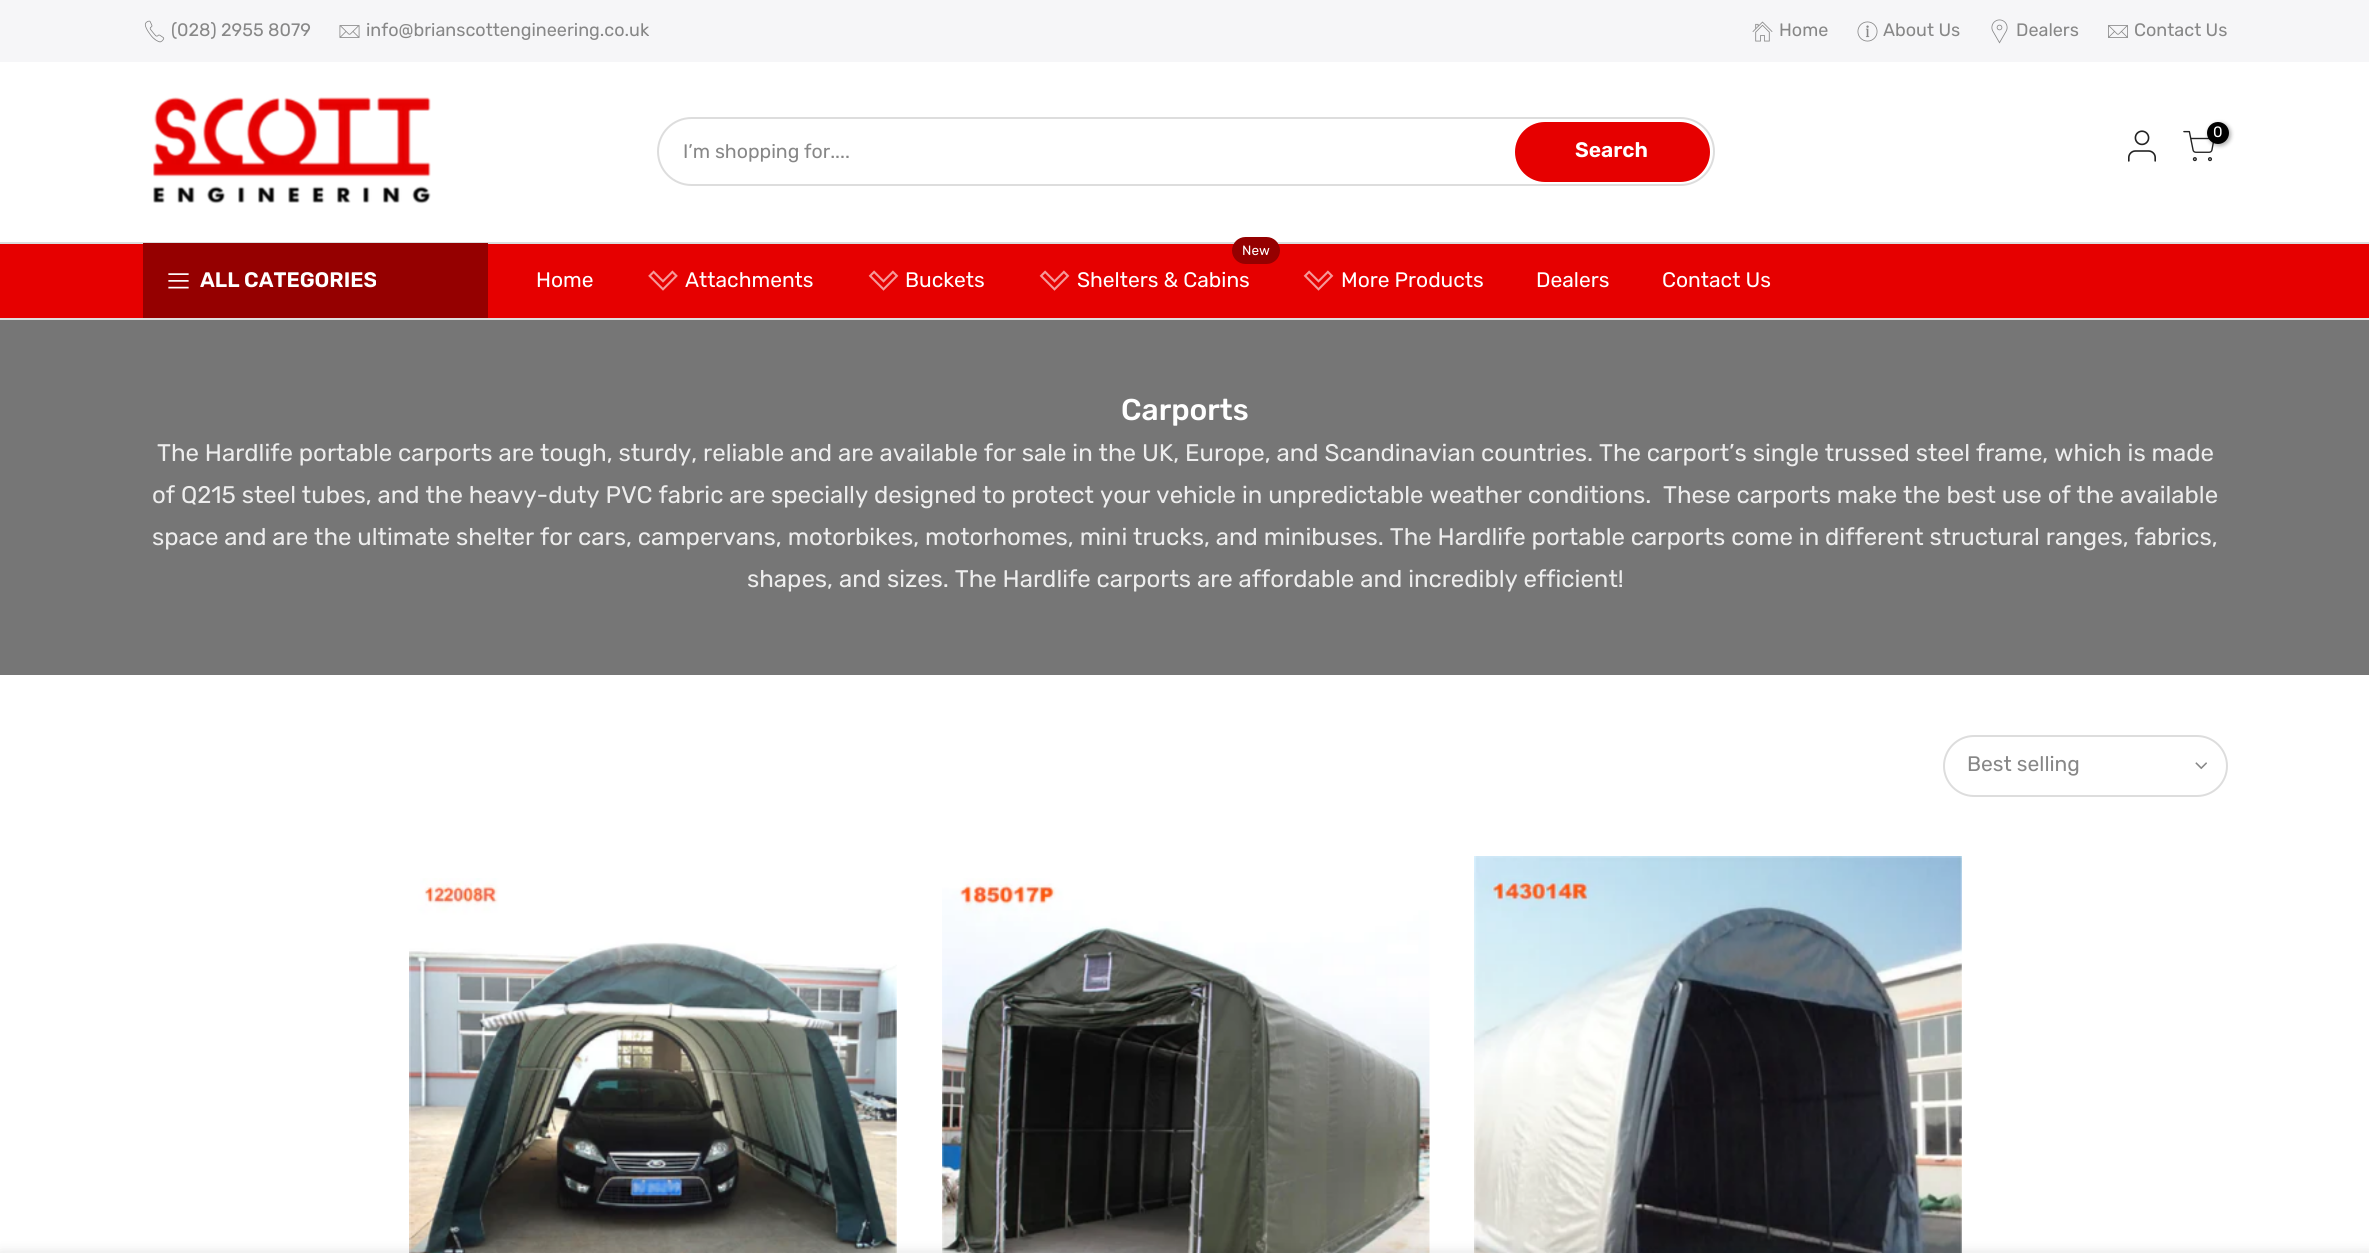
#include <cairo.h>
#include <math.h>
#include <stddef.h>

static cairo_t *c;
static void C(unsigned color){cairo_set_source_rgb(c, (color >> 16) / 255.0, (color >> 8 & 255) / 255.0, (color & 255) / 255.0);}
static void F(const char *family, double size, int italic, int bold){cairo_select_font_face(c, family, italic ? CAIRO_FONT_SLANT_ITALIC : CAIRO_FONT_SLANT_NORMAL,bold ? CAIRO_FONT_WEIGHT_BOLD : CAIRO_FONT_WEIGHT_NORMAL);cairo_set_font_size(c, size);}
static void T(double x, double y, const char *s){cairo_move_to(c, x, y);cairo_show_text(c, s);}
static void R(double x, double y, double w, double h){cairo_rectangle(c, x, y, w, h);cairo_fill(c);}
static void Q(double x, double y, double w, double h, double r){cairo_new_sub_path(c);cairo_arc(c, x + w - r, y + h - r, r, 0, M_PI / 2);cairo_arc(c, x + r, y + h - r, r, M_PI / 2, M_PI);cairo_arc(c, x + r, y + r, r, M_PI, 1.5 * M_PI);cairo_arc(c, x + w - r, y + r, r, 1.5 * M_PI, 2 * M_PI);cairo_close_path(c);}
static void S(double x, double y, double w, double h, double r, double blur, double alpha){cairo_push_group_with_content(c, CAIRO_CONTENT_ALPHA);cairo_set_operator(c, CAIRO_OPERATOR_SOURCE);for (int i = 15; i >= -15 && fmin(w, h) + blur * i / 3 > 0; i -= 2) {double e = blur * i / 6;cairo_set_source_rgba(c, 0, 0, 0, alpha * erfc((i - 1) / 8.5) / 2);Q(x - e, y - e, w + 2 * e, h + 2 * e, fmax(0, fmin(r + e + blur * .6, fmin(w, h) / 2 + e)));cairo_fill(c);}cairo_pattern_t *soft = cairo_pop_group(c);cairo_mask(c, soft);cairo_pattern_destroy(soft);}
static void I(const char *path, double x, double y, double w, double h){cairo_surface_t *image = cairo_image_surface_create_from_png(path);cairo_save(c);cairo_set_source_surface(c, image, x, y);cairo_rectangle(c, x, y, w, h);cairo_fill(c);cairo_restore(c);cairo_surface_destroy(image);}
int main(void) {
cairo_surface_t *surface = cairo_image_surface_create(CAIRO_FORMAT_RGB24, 2369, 1253);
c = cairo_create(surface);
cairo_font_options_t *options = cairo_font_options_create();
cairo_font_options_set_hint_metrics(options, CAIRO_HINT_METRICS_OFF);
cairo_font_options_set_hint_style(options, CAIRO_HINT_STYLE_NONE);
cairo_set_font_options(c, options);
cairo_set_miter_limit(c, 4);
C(0xffffff);
cairo_paint(c);
C(0xf6f6f8);
R(0,0,2369,62);
I("1.png",144,20,21,23);
F("Rubik",18,0,0);
C(0x878787);
T(171,36,"(028) 2955 8079");
I("2.png",339,25,21,13);
T(366,36,"info@brianscottengineering.co.uk");
I("3.png",1752,21,21,21);
T(1779,36,"Home");
I("4.png",1857,21,21,21);
T(1883,36,"About Us");
I("5.png",1991,19,17,25);
T(2016,36,"Dealers");
I("6.png",2108,25,20,13);
T(2134,36,"Contact Us");
I("7.png",153,97,278,107);
I("8.png",2128,130,28,32);
I("9.png",2183,130,31,32);
C(0x000000);
S(2208,123,23,23,11.5,2,.3);
C(0x000000);
cairo_arc(c,2218,133,11,0,2 * M_PI);
cairo_fill(c);
F("Rubik",15,0,0);
C(0xffffff);
T(2213,137,"0");
Q(658,118,1056,67,33.5);
C(0xdddddd);
cairo_stroke(c);
F("Rubik",19.5,0,0);
C(0x878787);
T(683,158,"I’m shopping for....");
C(0xe60000);
Q(1515,122,195,60,30);
cairo_fill(c);
F("Rubik SemiBold",21,0,0);
C(0xffffff);
T(1575,157,"Search");
C(0xe60000);
R(0,244,2369,74);
C(0xdddddd);
R(0,242,2369,2);
C(0x950000);
R(143,243,345,75);
I("10.png",168,273,21,16);
C(0xffffff);
T(200,287,"ALL CATEGORIES");
F("Rubik",21,0,0);
T(536,287,"Home");
I("11.png",648,270,30,21);
T(685,287,"Attachments");
I("12.png",868,270,31,21);
T(905,287,"Buckets");
C(0x950000);
Q(1232,237,48,27,13.5);
cairo_fill(c);
F("Rubik",13.5,0,0);
C(0xffffff);
T(1242,255,"New");
I("12.png",1039,270,31,21);
F("Rubik",21,0,0);
T(1077,287,"Shelters & Cabins");
I("12.png",1303,270,31,21);
T(1341,287,"More Products");
T(1536,287,"Dealers");
T(1662,287,"Contact Us");
C(0xdedede);
R(0,318,2369,2);
C(0x767676);
R(0,320,2369,355);
F("Rubik Medium",30,0,0);
C(0xffffff);
T(1121,420,"Carports");
F("Rubik",24,0,0);
C(0xededed);
T(157,461,"The Hardlife portable carports are tough, sturdy, reliable and are available for sale in the UK, Europe, and Scandinavian countries. The carport’s single trussed steel frame, which is made");
T(152,503,"of Q215 steel tubes, and the heavy-duty PVC fabric are specially designed to protect your vehicle in unpredictable weather conditions.  These carports make the best use of the available");
T(152,545,"space and are the ultimate shelter for cars, campervans, motorbikes, motorhomes, mini trucks, and minibuses. The Hardlife portable carports come in different structural ranges, fabrics,");
T(747,587,"shapes, and sizes. The Hardlife carports are affordable and incredibly efficient!");
Q(1944,736,283,60,30);
C(0xdddddd);
cairo_stroke(c);
F("Rubik",21,0,0);
C(0x878787);
T(1967,771,"Best selling");
I("13.png",2195,762,12,8);
I("14.png",409,878,488,375);
I("15.png",942,878,488,375);
I("16.png",1474,856,488,397);
C(0x000000);
S(0,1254,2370,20,0,7,.14);
cairo_surface_write_to_png(surface, "o.png");
cairo_font_options_destroy(options);
cairo_destroy(c);
cairo_surface_destroy(surface);
return 0;
}
